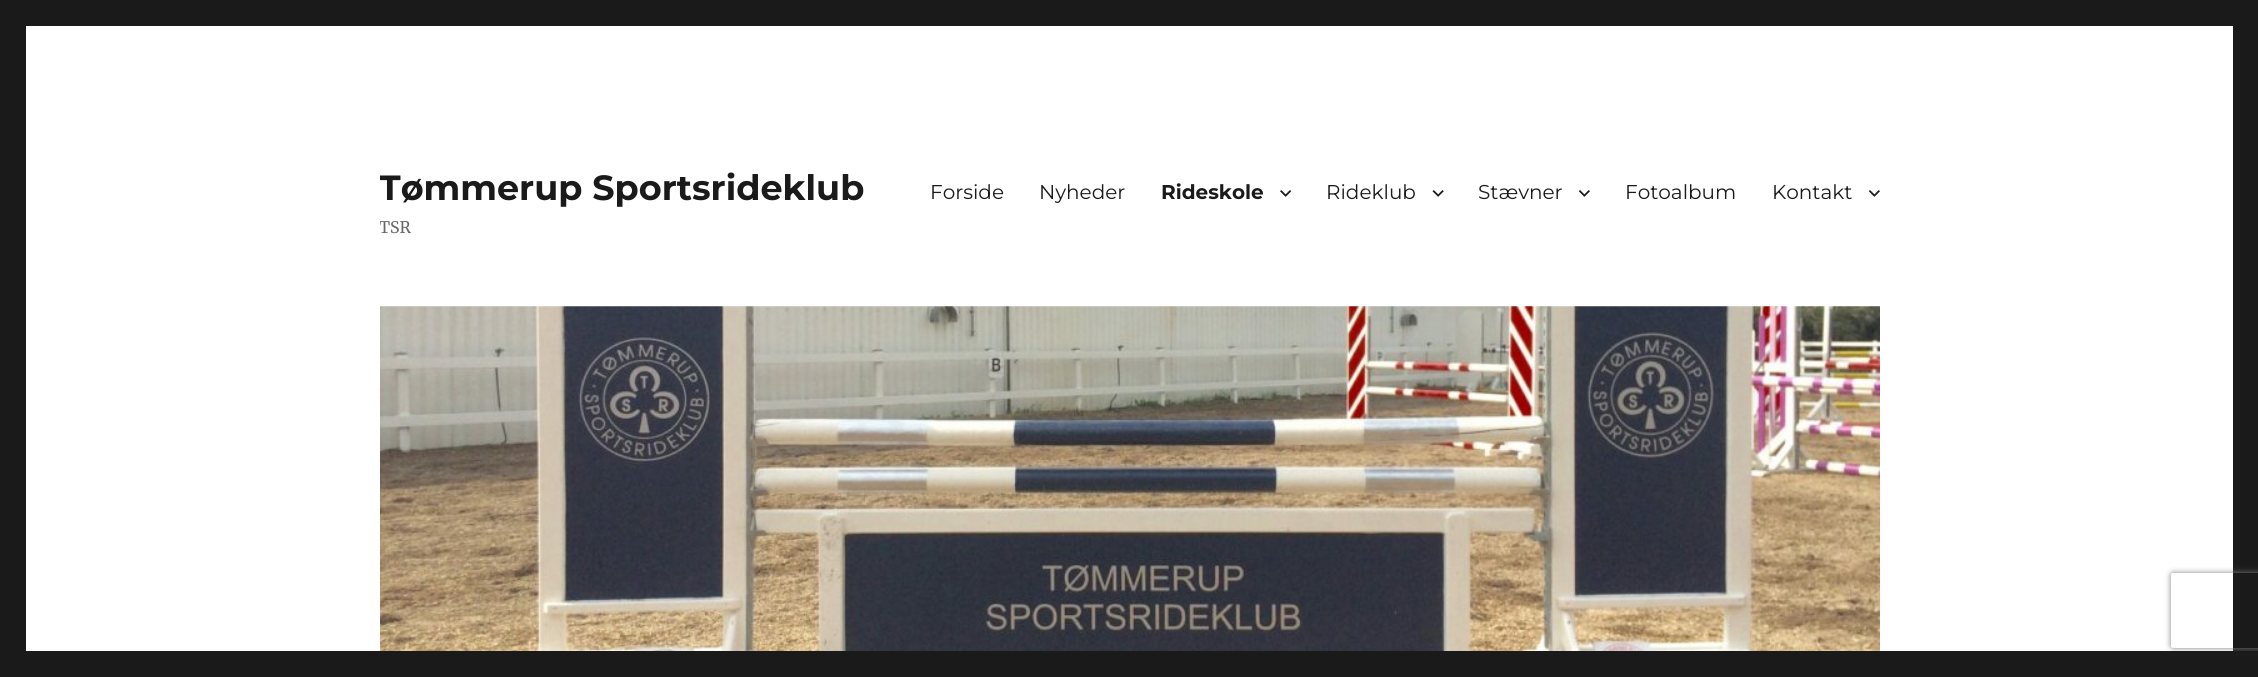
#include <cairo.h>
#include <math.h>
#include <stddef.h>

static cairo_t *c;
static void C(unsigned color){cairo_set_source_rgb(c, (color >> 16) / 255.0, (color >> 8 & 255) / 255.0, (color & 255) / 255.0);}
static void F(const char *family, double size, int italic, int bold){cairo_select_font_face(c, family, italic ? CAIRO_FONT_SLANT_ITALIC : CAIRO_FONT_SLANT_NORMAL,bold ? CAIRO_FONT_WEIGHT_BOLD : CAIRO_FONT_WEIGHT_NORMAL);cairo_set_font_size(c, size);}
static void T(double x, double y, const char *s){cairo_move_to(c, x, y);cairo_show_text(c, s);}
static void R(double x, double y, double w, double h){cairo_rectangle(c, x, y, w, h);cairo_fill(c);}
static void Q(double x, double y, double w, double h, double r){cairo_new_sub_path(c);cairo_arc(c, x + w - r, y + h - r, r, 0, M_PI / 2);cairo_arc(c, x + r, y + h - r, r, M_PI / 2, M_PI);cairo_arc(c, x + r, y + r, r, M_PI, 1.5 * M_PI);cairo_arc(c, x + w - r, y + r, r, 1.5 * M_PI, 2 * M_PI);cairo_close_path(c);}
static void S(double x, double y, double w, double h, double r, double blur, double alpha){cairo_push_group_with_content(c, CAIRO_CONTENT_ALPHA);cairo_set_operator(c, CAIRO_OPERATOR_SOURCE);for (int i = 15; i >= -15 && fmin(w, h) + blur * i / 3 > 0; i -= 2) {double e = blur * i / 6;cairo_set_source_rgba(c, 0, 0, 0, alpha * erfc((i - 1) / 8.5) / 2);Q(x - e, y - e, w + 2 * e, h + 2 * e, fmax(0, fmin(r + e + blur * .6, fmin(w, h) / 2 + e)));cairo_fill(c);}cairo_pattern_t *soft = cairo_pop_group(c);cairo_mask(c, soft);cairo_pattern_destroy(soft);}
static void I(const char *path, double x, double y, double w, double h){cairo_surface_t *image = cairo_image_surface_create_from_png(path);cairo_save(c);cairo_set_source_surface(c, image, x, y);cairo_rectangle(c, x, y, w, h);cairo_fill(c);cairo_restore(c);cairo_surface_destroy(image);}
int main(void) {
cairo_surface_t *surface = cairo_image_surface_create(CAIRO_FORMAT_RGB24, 2258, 677);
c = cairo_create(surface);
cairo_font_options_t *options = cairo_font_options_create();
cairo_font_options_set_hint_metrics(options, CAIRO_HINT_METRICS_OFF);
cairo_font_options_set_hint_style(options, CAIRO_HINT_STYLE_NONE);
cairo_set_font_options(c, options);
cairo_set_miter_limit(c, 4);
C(0x1a1a1a);
cairo_paint(c);
C(0xffffff);
R(26,26,2207,625);
cairo_save(c);
cairo_rectangle(c,380,166,485,70);
cairo_clip(c);
F("Montserrat Thin",35,0,0);
C(0x1a1a1a);
T(379,200,"Tømmerup Sportsrideklub");
F("Merriweather",16,0,0);
C(0x686868);
T(379,233,"TSR");
cairo_restore(c);
F("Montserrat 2 Thin",20,0,0);
C(0x1a1a1a);
T(930,199,"Forside");
T(1039,199,"Nyheder");
F("Montserrat Thin",20,0,0);
T(1161,199,"Rideskole");
I("1.png",1280,190,12,7);
F("Montserrat 2 Thin",20,0,0);
T(1326,199,"Rideklub");
I("2.png",1432,190,12,7);
T(1478,199,"Stævner");
I("3.png",1578,190,12,7);
T(1625,199,"Fotoalbum");
T(1772,199,"Kontakt");
I("3.png",1868,190,12,7);
I("4.png",380,306,1500,345);
cairo_save(c);
cairo_set_fill_rule(c,CAIRO_FILL_RULE_EVEN_ODD);
cairo_new_path(c);
cairo_move_to(c,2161,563);
cairo_line_to(c,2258,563);
cairo_line_to(c,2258,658);
cairo_line_to(c,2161,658);
cairo_close_path(c);
cairo_move_to(c,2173.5,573);
cairo_line_to(c,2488.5,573);
cairo_curve_to(c,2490,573,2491,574,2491,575.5);
cairo_line_to(c,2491,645.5);
cairo_curve_to(c,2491,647,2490,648,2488.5,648);
cairo_line_to(c,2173.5,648);
cairo_curve_to(c,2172,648,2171,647,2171,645.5);
cairo_line_to(c,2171,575.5);
cairo_curve_to(c,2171,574,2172,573,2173.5,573);
cairo_close_path(c);
cairo_clip(c);
C(0x808080);
S(2171,573,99,75,2.5,3,1);
cairo_restore(c);
R(2169,651,89,3);
cairo_surface_write_to_png(surface, "o.png");
cairo_font_options_destroy(options);
cairo_destroy(c);
cairo_surface_destroy(surface);
return 0;
}
